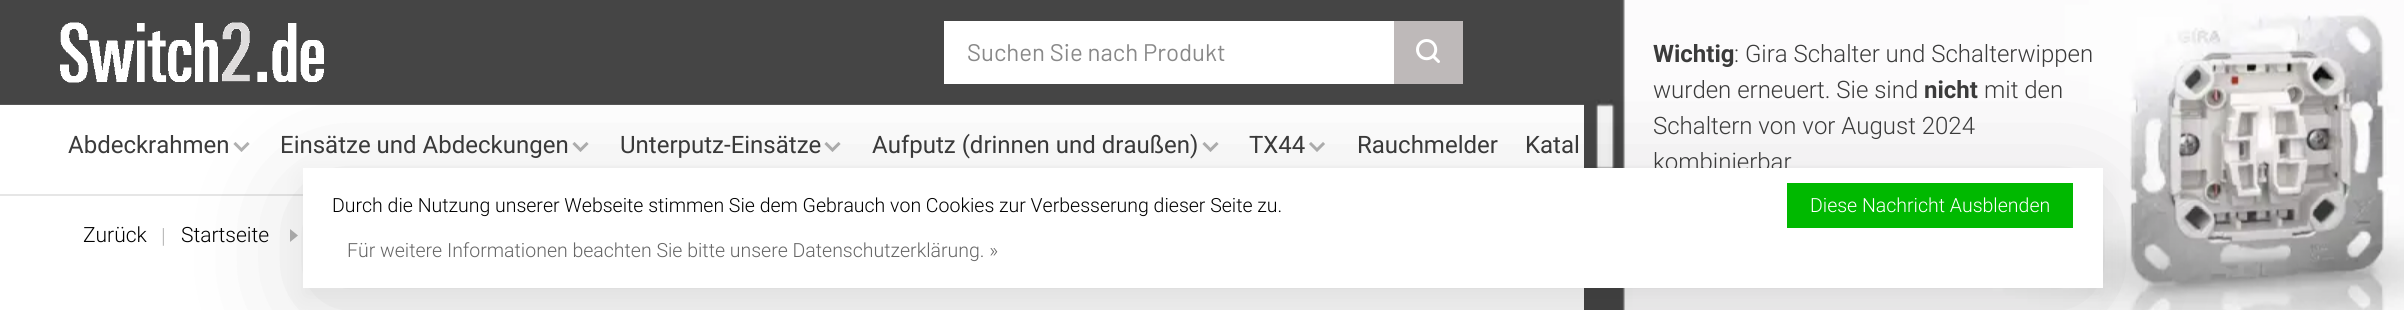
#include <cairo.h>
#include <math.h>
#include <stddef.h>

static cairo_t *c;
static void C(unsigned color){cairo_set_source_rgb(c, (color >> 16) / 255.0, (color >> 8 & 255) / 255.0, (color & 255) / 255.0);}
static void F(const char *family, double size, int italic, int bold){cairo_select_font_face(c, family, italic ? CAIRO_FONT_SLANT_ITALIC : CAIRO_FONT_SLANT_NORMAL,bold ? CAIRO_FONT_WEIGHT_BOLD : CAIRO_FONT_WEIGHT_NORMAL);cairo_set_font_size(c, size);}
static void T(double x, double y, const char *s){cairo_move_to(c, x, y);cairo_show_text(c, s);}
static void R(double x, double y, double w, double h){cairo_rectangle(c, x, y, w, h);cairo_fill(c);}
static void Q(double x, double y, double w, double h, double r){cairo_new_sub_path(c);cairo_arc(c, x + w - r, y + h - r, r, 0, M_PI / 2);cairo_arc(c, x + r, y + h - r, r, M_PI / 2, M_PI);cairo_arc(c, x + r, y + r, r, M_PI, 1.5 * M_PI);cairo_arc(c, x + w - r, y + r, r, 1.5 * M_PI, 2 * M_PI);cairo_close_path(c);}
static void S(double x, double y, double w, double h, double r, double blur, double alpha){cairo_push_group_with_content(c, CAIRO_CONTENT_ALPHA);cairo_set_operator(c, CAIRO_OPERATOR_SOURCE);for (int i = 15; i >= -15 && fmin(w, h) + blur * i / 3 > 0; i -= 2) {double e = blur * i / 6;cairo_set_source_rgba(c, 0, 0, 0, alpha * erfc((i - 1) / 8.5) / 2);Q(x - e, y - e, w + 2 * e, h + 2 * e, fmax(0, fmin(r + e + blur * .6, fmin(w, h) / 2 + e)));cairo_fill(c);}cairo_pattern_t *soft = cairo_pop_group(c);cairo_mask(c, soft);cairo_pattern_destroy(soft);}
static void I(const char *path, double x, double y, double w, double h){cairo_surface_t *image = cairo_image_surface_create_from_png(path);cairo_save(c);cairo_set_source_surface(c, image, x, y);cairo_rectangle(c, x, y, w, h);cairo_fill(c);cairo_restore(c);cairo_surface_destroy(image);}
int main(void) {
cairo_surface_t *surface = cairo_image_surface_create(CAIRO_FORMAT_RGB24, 2404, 310);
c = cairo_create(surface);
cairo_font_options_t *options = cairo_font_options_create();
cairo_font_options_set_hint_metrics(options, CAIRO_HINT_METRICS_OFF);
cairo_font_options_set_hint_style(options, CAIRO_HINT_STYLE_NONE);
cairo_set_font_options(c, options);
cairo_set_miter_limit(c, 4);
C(0xffffff);
cairo_paint(c);
C(0x454545);
R(0,0,1584,105);
cairo_set_source_rgba(c,1,1,1,0.1);
R(0,104,1584,1);
I("1.png",60,22,264,61);
C(0xffffff);
R(944,21,450,63);
F("Barlow",24,0,0);
C(0x898989);
T(967,61,"Suchen Sie nach Produkt");
C(0xbeb9b9);
R(1394,21,69,63);
I("2.png",1416,39,24,24);
cairo_set_source_rgba(c,0,0,0,0.1);
R(0,194,303,2);
F("Roboto",24,0,0);
C(0x3b3b3b);
T(68,153,"Abdeckrahmen");
I("3.png",233,142,17,10);
T(280,153,"Einsätze und Abdeckungen");
I("3.png",572,142,17,10);
T(620,153,"Unterputz-Einsätze");
I("3.png",824,142,17,10);
T(872,153,"Aufputz (drinnen und draußen)");
I("3.png",1202,142,17,10);
T(1249,153,"TX44");
I("4.png",1309,142,16,10);
T(1357,153,"Rauchmelder");
T(1525,153,"Katal");
F("Roboto Light",21,0,0);
C(0x000000);
T(83,242,"Zurück");
C(0xb3b3b3);
T(161,243,"|");
C(0x000000);
T(181,242,"Startseite");
C(0xb3b3b3);
cairo_new_path(c);
cairo_move_to(c,290,242);
cairo_line_to(c,298,235.5);
cairo_line_to(c,290,229);
cairo_close_path(c);
cairo_fill(c);
I("5.png",1584,0,820,310);
C(0x000000);
S(303,177,1800,120,0,11,.05);
S(312,198,1782,102,0,64.5,.15);
F("Roboto Light",24,0,0);
C(0x3b3b3b);
T(1653,170,"kombinierbar");
C(0xffffff);
R(303,168,1800,120);
F("Roboto Light",19.5,0,0);
C(0x000000);
T(332,212,"Durch die Nutzung unserer Webseite stimmen Sie dem Gebrauch von Cookies zur Verbesserung dieser Seite zu.");
C(0x00b900);
R(1787,183,286,45);
C(0xffffff);
T(1810,212,"Diese Nachricht Ausblenden");
C(0x666666);
T(347,257,"Für weitere Informationen beachten Sie bitte unsere Datenschutzerklärung. »");
F("Roboto",24,0,1);
C(0x3b3b3b);
T(1653,62,"Wichtig");
F("Roboto Light",24,0,0);
T(1734,62,": Gira Schalter und Schalterwippen");
T(1653,98,"wurden erneuert. Sie sind");
F("Roboto",24,0,1);
T(1924,98,"nicht");
F("Roboto Light",24,0,0);
T(1984,98,"mit den");
T(1653,134,"Schaltern von vor August 2024");
cairo_surface_write_to_png(surface, "o.png");
cairo_font_options_destroy(options);
cairo_destroy(c);
cairo_surface_destroy(surface);
return 0;
}
